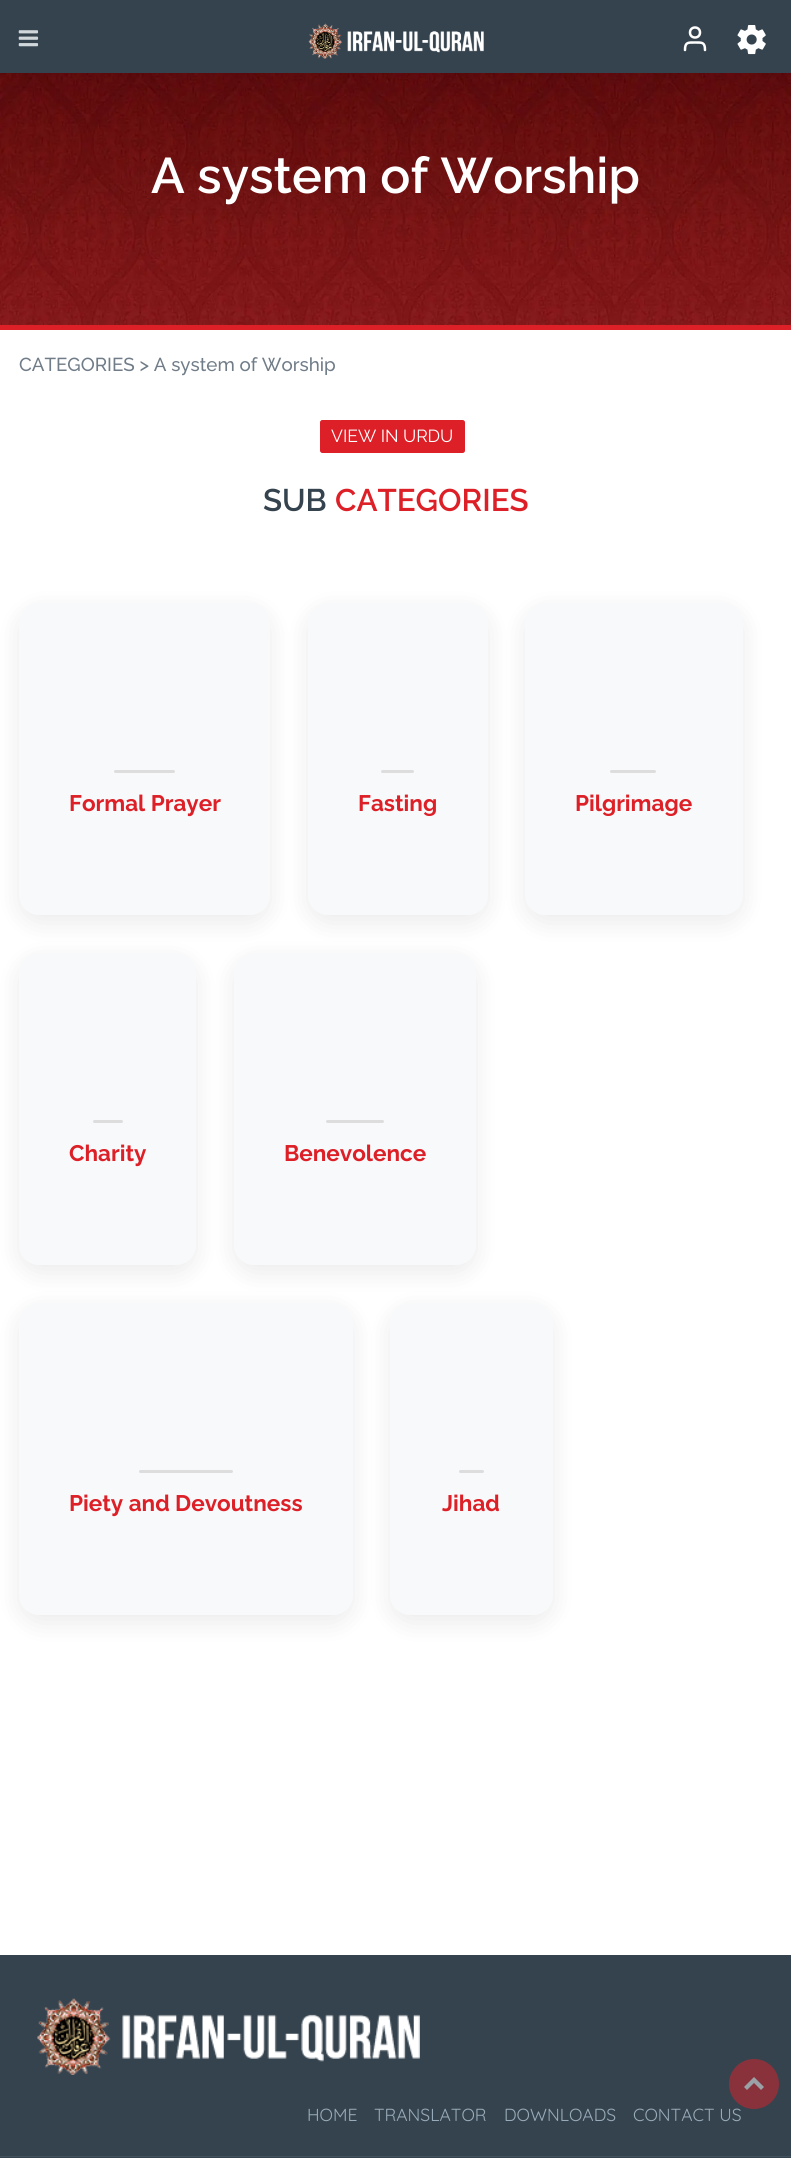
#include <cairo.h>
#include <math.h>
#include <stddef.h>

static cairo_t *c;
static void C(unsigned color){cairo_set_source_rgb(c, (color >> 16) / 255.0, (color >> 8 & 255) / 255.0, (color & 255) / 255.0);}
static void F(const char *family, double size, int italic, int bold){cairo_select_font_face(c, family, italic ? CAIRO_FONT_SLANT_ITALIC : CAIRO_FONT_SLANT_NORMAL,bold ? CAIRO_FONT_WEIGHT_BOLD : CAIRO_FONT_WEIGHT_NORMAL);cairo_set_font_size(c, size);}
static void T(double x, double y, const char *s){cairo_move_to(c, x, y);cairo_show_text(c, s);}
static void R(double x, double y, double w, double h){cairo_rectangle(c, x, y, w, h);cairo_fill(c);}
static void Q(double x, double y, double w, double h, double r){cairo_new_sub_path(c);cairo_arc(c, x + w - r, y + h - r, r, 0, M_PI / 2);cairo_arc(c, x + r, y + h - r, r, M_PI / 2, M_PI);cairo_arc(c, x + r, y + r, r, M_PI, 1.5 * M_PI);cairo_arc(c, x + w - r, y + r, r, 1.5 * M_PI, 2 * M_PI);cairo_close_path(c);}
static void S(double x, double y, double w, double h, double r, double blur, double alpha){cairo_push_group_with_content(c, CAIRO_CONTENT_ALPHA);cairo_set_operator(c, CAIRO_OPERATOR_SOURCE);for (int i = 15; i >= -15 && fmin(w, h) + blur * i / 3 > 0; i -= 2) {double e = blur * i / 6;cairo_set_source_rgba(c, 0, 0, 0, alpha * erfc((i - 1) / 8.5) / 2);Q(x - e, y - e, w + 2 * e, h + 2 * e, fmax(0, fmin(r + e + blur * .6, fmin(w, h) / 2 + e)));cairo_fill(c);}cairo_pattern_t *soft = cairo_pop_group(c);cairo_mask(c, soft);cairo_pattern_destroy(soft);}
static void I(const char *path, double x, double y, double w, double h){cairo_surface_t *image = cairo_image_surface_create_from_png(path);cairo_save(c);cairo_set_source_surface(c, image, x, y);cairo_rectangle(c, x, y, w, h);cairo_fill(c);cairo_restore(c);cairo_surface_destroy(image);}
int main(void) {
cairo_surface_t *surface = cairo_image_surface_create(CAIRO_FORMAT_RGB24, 791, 2158);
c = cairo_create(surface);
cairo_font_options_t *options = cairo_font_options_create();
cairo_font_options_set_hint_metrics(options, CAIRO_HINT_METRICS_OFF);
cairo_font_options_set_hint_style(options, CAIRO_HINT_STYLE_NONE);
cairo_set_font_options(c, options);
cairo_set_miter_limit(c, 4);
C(0xffffff);
cairo_paint(c);
C(0x35434e);
R(0,0,791,73);
I("1.png",18,30,21,17);
I("2.png",308,23,176,36);
cairo_arc(c,695,32.5,5,0,2 * M_PI);
C(0xffffff);
cairo_set_line_width(c,2.5);
cairo_stroke(c);
cairo_new_path(c);
cairo_move_to(c,705,50);
cairo_curve_to(c,705,42,702,42.5,695,42.5);
cairo_curve_to(c,688,42.5,685,42,685,50);
cairo_set_line_cap(c,CAIRO_LINE_CAP_ROUND);
cairo_set_line_join(c,CAIRO_LINE_JOIN_ROUND);
cairo_stroke(c);
I("3.png",737,25,29,30);
I("4.png",0,73,791,252);
C(0xdd2027);
R(0,325,791,5);
F("Raleway SemiBold",50,0,0);
C(0xffffff);
T(151,193,"A system of Worship");
F("Raleway Medium",18.75,0,0);
C(0x707c88);
T(19,371,"CATEGORIES > A system of Worship");
C(0xdd2027);
Q(320.5,420.5,144,32,2);
cairo_fill_preserve(c);
cairo_set_line_width(c,1);
cairo_set_line_cap(c,CAIRO_LINE_CAP_BUTT);
cairo_set_line_join(c,CAIRO_LINE_JOIN_MITER);
cairo_stroke(c);
F("Raleway",17.5,0,0);
C(0xffffff);
T(331,442,"VIEW IN URDU");
F("Raleway SemiBold",31.25,0,0);
C(0x35434e);
T(263,511,"SUB");
C(0xdd2027);
T(335,511,"CATEGORIES");
C(0x000000);
S(19,610,251,313,20,12.5,.08);
C(0xf8f9fa);
Q(19,603,251,312,20);
cairo_fill(c);
C(0xdddddd);
Q(114,770,61,3,1.5);
cairo_fill(c);
F("Raleway",22.5,0,1);
C(0xdd2027);
T(69,811,"Formal Prayer");
C(0x000000);
S(308,610,180,313,20,12.5,.08);
C(0xf8f9fa);
Q(308,603,180,312,20);
cairo_fill(c);
C(0xdddddd);
Q(381,770,33,3,1.5);
cairo_fill(c);
C(0xdd2027);
T(358,811,"Fasting");
C(0x000000);
S(525,610,218,313,20,12.5,.08);
C(0xf8f9fa);
Q(525,603,218,312,20);
cairo_fill(c);
C(0xdddddd);
Q(610,770,46,3,1.5);
cairo_fill(c);
C(0xdd2027);
T(575,811,"Pilgrimage");
C(0x000000);
S(19,960,177,313,20,12.5,.08);
C(0xf8f9fa);
Q(19,953,177,312,20);
cairo_fill(c);
C(0xdddddd);
Q(93,1120,30,3,1.5);
cairo_fill(c);
C(0xdd2027);
T(69,1161,"Charity");
C(0x000000);
S(234,960,242,313,20,12.5,.08);
C(0xf8f9fa);
Q(234,953,242,312,20);
cairo_fill(c);
C(0xdddddd);
Q(326,1120,58,3,1.5);
cairo_fill(c);
C(0xdd2027);
T(284,1161,"Benevolence");
C(0x000000);
S(19,1310,334,313,20,12.5,.08);
C(0xf8f9fa);
Q(19,1303,334,312,20);
cairo_fill(c);
C(0xdddddd);
Q(139,1470,94,3,1.5);
cairo_fill(c);
C(0xdd2027);
T(69,1511,"Piety and Devoutness");
C(0x000000);
S(390,1310,163,313,20,12.5,.08);
C(0xf8f9fa);
Q(390,1303,163,312,20);
cairo_fill(c);
C(0xdddddd);
Q(459,1470,25,3,1.5);
cairo_fill(c);
C(0xdd2027);
T(442,1511,"Jihad");
C(0x35434e);
R(0,1955,791,203);
F("Quicksand",17.5,0,0);
C(0x99abb9);
T(633,2121,"CONTACT US");
C(0x89323b);
cairo_new_path(c);
cairo_arc(c,754,2084,25,0,2 * M_PI);
cairo_fill(c);
C(0x9aa1a7);
cairo_new_path(c);
cairo_move_to(c,754,2077);
cairo_line_to(c,764,2087);
cairo_line_to(c,761,2090);
cairo_line_to(c,754,2083);
cairo_line_to(c,747,2090);
cairo_line_to(c,744,2087);
cairo_close_path(c);
cairo_fill(c);
C(0x42525f);
R(0,2156,791,1);
I("5.png",37,1998,383,77);
C(0x99abb9);
T(307,2121,"HOME");
T(374,2121,"TRANSLATOR");
T(504,2121,"DOWNLOADS");
cairo_surface_write_to_png(surface, "o.png");
cairo_font_options_destroy(options);
cairo_destroy(c);
cairo_surface_destroy(surface);
return 0;
}
